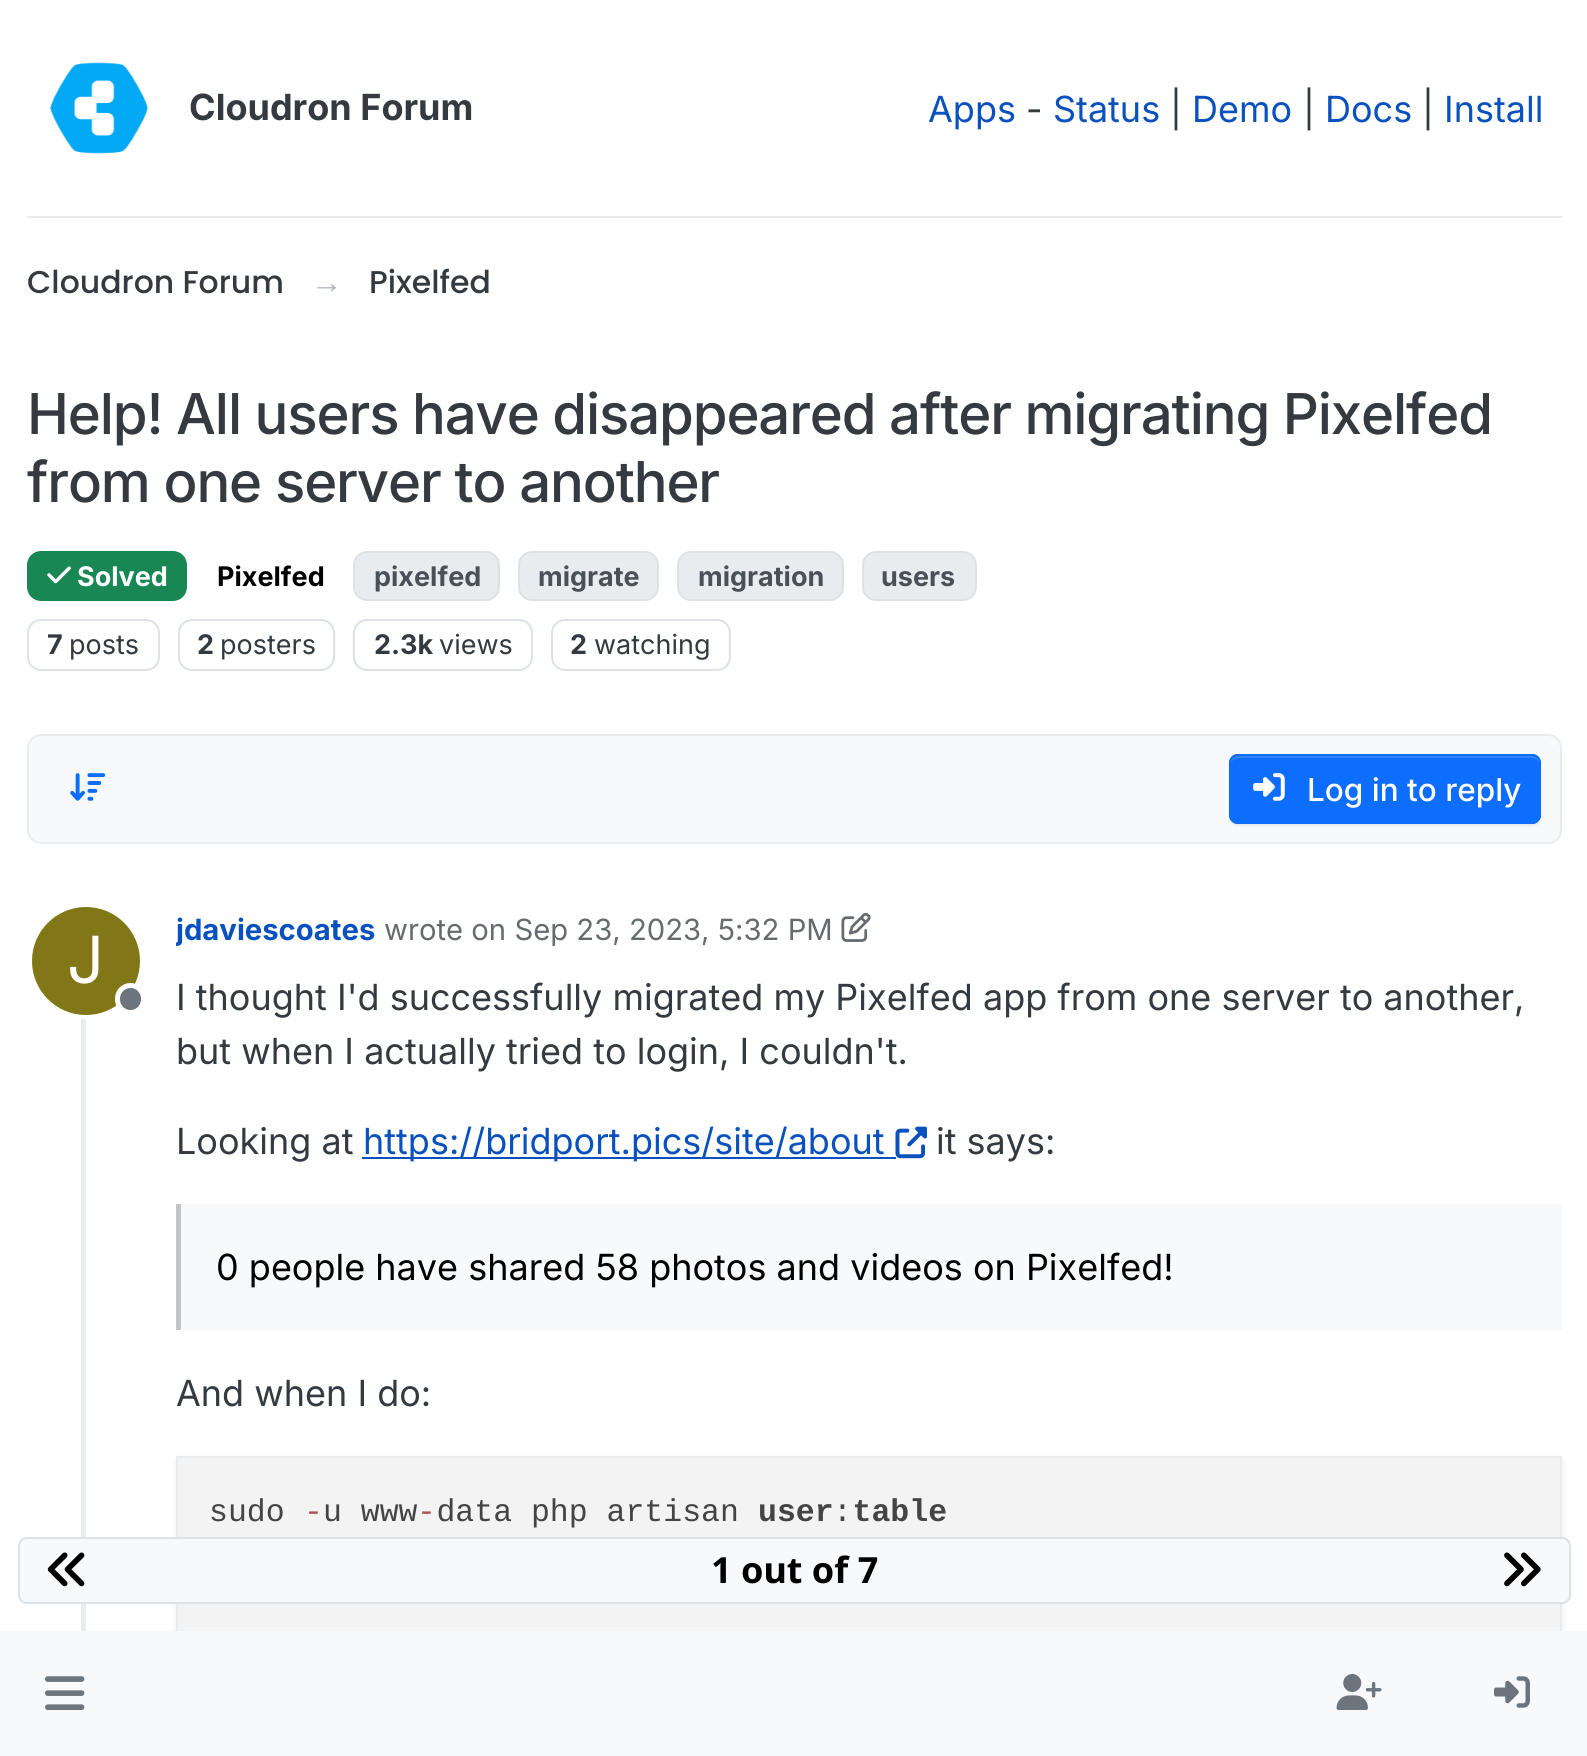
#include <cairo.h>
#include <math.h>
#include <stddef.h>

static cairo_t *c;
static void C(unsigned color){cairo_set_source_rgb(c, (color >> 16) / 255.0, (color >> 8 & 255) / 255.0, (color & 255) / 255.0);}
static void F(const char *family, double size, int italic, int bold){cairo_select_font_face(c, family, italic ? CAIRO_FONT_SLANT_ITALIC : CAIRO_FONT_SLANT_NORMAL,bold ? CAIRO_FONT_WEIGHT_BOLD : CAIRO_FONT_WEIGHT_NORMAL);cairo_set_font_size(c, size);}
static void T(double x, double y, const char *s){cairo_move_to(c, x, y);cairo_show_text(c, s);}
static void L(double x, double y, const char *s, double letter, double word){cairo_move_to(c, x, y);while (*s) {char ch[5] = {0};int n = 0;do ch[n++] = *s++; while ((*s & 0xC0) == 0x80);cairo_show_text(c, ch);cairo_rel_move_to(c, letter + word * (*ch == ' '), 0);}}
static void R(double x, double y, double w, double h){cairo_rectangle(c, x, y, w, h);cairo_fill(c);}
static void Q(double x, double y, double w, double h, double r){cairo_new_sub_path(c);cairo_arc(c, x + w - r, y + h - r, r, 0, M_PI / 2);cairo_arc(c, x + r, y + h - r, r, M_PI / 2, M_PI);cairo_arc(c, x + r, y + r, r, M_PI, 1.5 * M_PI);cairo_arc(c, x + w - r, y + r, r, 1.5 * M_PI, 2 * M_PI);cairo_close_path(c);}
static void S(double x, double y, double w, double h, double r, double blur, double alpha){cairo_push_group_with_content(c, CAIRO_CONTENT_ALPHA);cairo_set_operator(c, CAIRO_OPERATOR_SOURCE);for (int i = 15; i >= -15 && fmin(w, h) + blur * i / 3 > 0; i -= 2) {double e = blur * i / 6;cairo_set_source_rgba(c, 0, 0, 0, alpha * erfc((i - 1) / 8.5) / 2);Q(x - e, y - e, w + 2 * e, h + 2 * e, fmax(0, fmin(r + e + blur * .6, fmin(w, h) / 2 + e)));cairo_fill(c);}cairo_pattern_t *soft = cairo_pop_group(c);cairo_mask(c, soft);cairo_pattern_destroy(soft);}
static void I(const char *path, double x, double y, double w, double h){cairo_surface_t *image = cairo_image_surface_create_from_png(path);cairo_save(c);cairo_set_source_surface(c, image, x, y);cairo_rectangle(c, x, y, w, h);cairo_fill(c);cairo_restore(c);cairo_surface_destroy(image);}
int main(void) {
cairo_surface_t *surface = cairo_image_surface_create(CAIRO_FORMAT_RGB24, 1587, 1756);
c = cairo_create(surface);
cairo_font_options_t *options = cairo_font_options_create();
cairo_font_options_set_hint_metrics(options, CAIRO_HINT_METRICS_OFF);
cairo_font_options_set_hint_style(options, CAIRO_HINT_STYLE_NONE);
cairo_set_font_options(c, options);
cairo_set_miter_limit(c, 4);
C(0xffffff);
cairo_paint(c);
C(0xe9ecef);
R(27,216,1535,2);
I("1.png",50,62,98,92);
F("Inter",36,0,1);
C(0x343a40);
T(189,120,"Cloudron Forum");
F("Inter",36,0,0);
C(0x0951be);
T(928,122,"Apps");
C(0x343a40);
T(1026,122,"-");
C(0x0951be);
T(1053,122,"Status");
C(0x343a40);
T(1170,122,"|");
C(0x0951be);
T(1192,122,"Demo");
C(0x343a40);
T(1303,122,"|");
C(0x0951be);
T(1325,122,"Docs");
C(0x343a40);
T(1422,122,"|");
C(0x0951be);
T(1444,122,"Install");
F("Poppins Medium",31.5,0,0);
C(0x343a40);
T(27,293,"Cloudron Forum");
F("Liberation Sans",31.5,0,0);
C(0xadb5bd);
T(311,293,"→");
F("Poppins Medium",31.5,0,0);
C(0x343a40);
T(369,293,"Pixelfed");
F("Inter Medium",56.3,0,0);
L(27,434,"Help! All users have disappeared after migrating Pixelfed",-1.13,-.25);
L(27,502,"from one server to another",-1.13,0);
C(0x198754);
Q(28,552,158,48,13);
cairo_fill_preserve(c);
cairo_stroke(c);
I("2.png",47,566,24,18);
F("Inter",27,0,1);
C(0xffffff);
T(77,586,"Solved");
C(0x000000);
T(217,586,"Pixelfed");
C(0xe9ecef);
Q(354,552,145,48,13);
cairo_fill_preserve(c);
C(0xdee2e6);
cairo_stroke(c);
C(0x495057);
T(374,586,"pixelfed");
C(0xe9ecef);
Q(519,552,139,48,13);
cairo_fill_preserve(c);
C(0xdee2e6);
cairo_stroke(c);
C(0x495057);
T(538,586,"migrate");
C(0xe9ecef);
Q(678,552,165,48,13);
cairo_fill_preserve(c);
C(0xdee2e6);
cairo_stroke(c);
C(0x495057);
T(698,586,"migration");
C(0xe9ecef);
Q(863,552,113,48,13);
cairo_fill_preserve(c);
C(0xdee2e6);
cairo_stroke(c);
C(0x495057);
T(881,586,"users");
Q(28,620,131,50,13);
C(0xdee2e6);
cairo_stroke(c);
C(0x343a40);
T(47,654,"7");
F("Inter",27,0,0);
T(69,654,"posts");
Q(179,620,155,50,13);
C(0xdee2e6);
cairo_stroke(c);
F("Inter",27,0,1);
C(0x343a40);
T(197,654,"2");
F("Inter",27,0,0);
T(220,654,"posters");
Q(354,620,178,50,13);
C(0xdee2e6);
cairo_stroke(c);
F("Inter",27,0,1);
C(0x343a40);
T(374,654,"2.3k");
F("Inter",27,0,0);
T(439,654,"views");
Q(552,620,178,50,13);
C(0xdee2e6);
cairo_stroke(c);
F("Inter",27,0,1);
C(0x343a40);
T(570,654,"2");
F("Inter",27,0,0);
T(594,654,"watching");
C(0xf8f9fa);
Q(28,735,1533,108,13);
cairo_fill_preserve(c);
C(0xe9ecef);
cairo_stroke(c);
I("3.png",70,773,36,28);
C(0x000000);
S(1229,756,312,70,9,1,.07);
C(0x0d6efd);
Q(1229,754,312,70,9);
cairo_fill(c);
C(0x3184fd);
cairo_new_path(c);
cairo_move_to(c,1238,758);
cairo_line_to(c,1532,758);
cairo_curve_to(c,1536,758,1539,761,1539,765);
cairo_line_to(c,1539,763);
cairo_curve_to(c,1539,759,1536,756,1532,756);
cairo_line_to(c,1238,756);
cairo_curve_to(c,1234,756,1231,759,1231,763);
cairo_line_to(c,1231,765);
cairo_curve_to(c,1231,761,1234,758,1238,758);
cairo_close_path(c);
cairo_fill(c);
Q(1230,755,310,68,8);
C(0x0d6efd);
cairo_stroke(c);
I("4.png",1253,773,32,28);
F("Inter Medium",31.5,0,0);
C(0xffffff);
T(1307,801,"Log in to reply");
C(0xe9ecef);
R(81,907,5,724);
cairo_new_path(c);
cairo_arc(c,85.5,960.5,56,0,2 * M_PI);
C(0xffffff);
cairo_set_line_width(c,5);
cairo_stroke(c);
C(0x827717);
cairo_arc(c,86,961,54,0,2 * M_PI);
cairo_fill(c);
F("Inter",65,0,0);
C(0xffffff);
T(67,983,"J");
C(0x6c757d);
Q(117.5,985.5,26,27,13);
cairo_fill_preserve(c);
C(0xffffff);
cairo_stroke(c);
cairo_save(c);
cairo_rectangle(c,176,907,200,45);
cairo_clip(c);
F("Inter",29.25,0,1);
C(0x0951be);
T(176,940,"jdaviescoates");
cairo_restore(c);
F("Inter",29.25,0,0);
C(0x676b70);
T(384,940,"wrote on Sep 23, 2023, 5:32 PM");
I("5.png",841,912,30,30);
F("Inter",36,0,0);
C(0x343a40);
T(176,1010,"I thought I'd successfully migrated my Pixelfed app from one server to another,");
T(176,1064,"but when I actually tried to login, I couldn't.");
T(176,1154,"Looking at");
C(0x0951be);
R(362,1157,534,2);
T(363,1154,"https://bridport.pics/site/about");
I("6.png",895,1126,32,33);
C(0x343a40);
T(936,1154,"it says:");
C(0xf8f9fa);
R(181,1204,1381,126);
C(0xc2c4c6);
R(176,1204,5,126);
C(0x000000);
T(216,1280,"0 people have shared 58 photos and videos on Pixelfed!");
C(0x343a40);
T(176,1406,"And when I do:");
C(0x000000);
S(176,1460,1386,257,0,4.5,.07);
cairo_rectangle(c,177,1457,1384,254);
C(0xe9ecef);
cairo_set_line_width(c,2);
cairo_stroke(c);
C(0xf3f3f3);
R(178,1458,1381,173);
F("Liberation Mono",31.5,0,0);
C(0x444444);
T(209,1521,"sudo");
T(323,1521,"u www data php artisan");
F("Liberation Mono",31.5,0,1);
T(758,1521,"user table");
F("Liberation Mono",31.5,0,0);
C(0xab5656);
T(304,1521,"-");
T(417,1521,"-");
C(0x444444);
T(833,1521,":");
C(0xf8f9fa);
Q(19,1538,1551,65,8);
cairo_fill_preserve(c);
C(0xdee2e6);
cairo_stroke(c);
I("7.png",47,1552,38,35);
F("Noto Sans",36,0,1);
C(0x000000);
T(711,1583,"1 out of 7");
I("8.png",1504,1552,37,35);
C(0xf8f9fa);
R(0,1631,1587,125);
I("9.png",45,1676,40,34);
I("10.png",1336,1674,46,36);
I("11.png",1494,1676,36,32);
cairo_surface_write_to_png(surface, "o.png");
cairo_font_options_destroy(options);
cairo_destroy(c);
cairo_surface_destroy(surface);
return 0;
}
